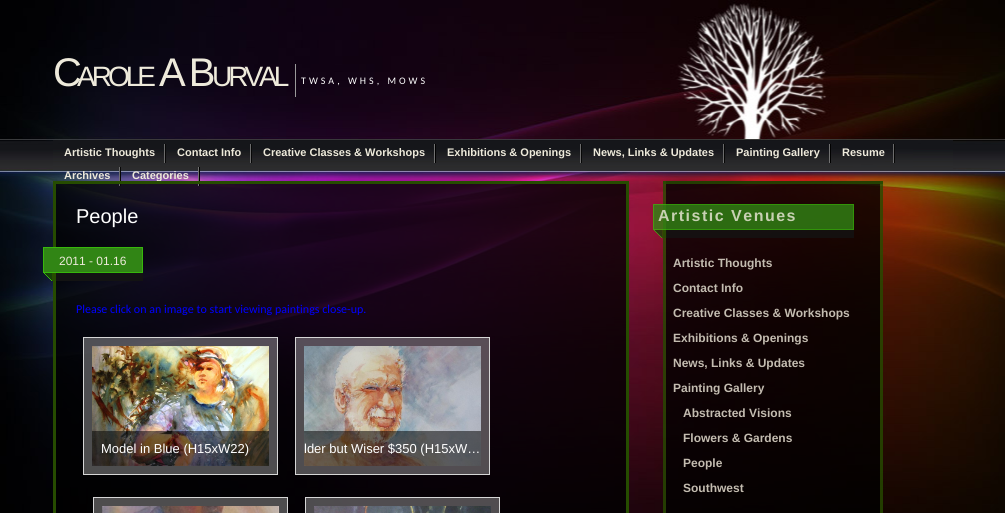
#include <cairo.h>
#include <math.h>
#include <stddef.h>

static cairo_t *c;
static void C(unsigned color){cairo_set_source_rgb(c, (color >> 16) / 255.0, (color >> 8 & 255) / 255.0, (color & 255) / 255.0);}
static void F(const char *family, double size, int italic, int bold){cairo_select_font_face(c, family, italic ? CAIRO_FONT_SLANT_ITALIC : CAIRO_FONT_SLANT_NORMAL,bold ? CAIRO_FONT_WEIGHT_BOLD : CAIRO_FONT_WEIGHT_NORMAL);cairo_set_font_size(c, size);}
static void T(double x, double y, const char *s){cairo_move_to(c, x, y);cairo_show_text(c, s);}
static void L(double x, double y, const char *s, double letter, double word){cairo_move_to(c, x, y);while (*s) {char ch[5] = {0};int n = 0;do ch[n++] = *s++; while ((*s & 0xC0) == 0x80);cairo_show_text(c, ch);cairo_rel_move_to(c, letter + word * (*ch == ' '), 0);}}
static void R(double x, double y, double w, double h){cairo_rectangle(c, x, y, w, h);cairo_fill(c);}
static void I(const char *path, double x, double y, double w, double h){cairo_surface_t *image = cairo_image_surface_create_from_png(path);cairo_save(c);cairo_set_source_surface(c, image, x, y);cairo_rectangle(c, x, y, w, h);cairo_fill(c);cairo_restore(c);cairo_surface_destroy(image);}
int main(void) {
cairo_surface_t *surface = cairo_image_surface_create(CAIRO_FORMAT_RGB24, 1005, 513);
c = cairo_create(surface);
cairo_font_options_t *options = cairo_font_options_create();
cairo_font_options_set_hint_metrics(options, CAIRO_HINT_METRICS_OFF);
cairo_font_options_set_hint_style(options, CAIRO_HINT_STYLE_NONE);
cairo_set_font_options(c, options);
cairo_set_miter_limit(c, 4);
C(0xffffff);
cairo_paint(c);
I("1.png",0,0,1005,513);
F("Liberation Sans",40,0,0);
C(0xeeeadb);
L(53,86,"C",-4,0);
F("Liberation Sans",28,0,0);
L(77,86,"AROLE",-4,0);
F("Liberation Sans",40,0,0);
L(159,86,"A B",-4,0);
F("Liberation Sans",28,0,0);
L(212,86,"URVAL",-4,0);
C(0x999999);
R(295,64,1,33);
F("Carlito",10,0,0);
C(0xffffff);
L(301,84,"TWSA, WHS, MOWS",3,0);
I("2.png",53,140,900,30);
I("3.png",164,144,2,19);
F("Liberation Sans",11,0,1);
C(0xeeeadb);
T(64,156,"Artistic Thoughts");
I("3.png",250,144,2,19);
T(177,156,"Contact Info");
I("4.png",434,144,2,19);
T(263,156,"Creative Classes & Workshops");
I("5.png",580,144,2,19);
T(447,156,"Exhibitions & Openings");
I("5.png",723,144,2,19);
T(593,156,"News, Links & Updates");
I("4.png",829,144,2,19);
T(736,156,"Painting Gallery");
I("5.png",893,144,2,19);
T(842,156,"Resume");
cairo_set_source_rgba(c,0,0,0,0.8);
R(56,184,570,329);
I("6.png",119,167,2,19);
C(0xeeeadb);
T(64,179,"Archives");
I("4.png",198,167,2,19);
T(132,179,"Categories");
cairo_rectangle(c,54.5,182.5,573,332);
C(0x264c00);
cairo_set_line_width(c,3);
cairo_stroke(c);
F("Liberation Sans",20,0,0);
C(0xffffff);
T(76,223,"People");
I("7.png",43,247,100,34);
F("Liberation Sans",12,0,0);
C(0xeeeadb);
T(59,265,"2011 - 01.16");
F("Carlito",12,0,0);
C(0x0000ff);
T(76,313,"Please click on an image to start viewing paintings close-up.");
cairo_set_source_rgba(c,1,1,1,0.3);
cairo_rectangle(c,83.5,337.5,194,137);
cairo_fill_preserve(c);
C(0xd6d6d6);
cairo_set_line_width(c,1);
cairo_stroke(c);
I("8.png",92,346,177,120);
cairo_set_source_rgba(c,0,0,0,0.52);
R(92,431,177,35);
F("Liberation Sans",13,0,0);
C(0xffffff);
T(101,453,"Model in Blue (H15xW22)");
cairo_set_source_rgba(c,1,1,1,0.3);
cairo_rectangle(c,295.5,337.5,194,137);
cairo_fill_preserve(c);
C(0xd6d6d6);
cairo_stroke(c);
I("9.png",304,346,177,120);
cairo_set_source_rgba(c,0,0,0,0.52);
R(304,431,177,35);
C(0xffffff);
T(304,453,"lder but Wiser $350 (H15xW…");
C(0x4e4d4e);
cairo_rectangle(c,93.5,497.5,194,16);
cairo_fill_preserve(c);
C(0xd6d6d6);
cairo_stroke(c);
I("10.png",102,506,177,7);
cairo_set_source_rgba(c,1,1,1,0.3);
cairo_rectangle(c,305.5,497.5,194,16);
cairo_fill_preserve(c);
C(0xd6d6d6);
cairo_stroke(c);
I("11.png",314,506,177,7);
I("12.png",663,181,220,332);
cairo_set_source_rgba(c,0.145,0.294,0,0.8);
R(663,181,220,3);
I("13.png",653,204,201,34);
F("Liberation Sans",16,0,1);
C(0xc8d1b3);
L(658,221,"Artistic Venues",1.5,0);
F("Liberation Sans",12,0,1);
C(0xc3bcb0);
T(673,267,"Artistic Thoughts");
T(673,292,"Contact Info");
T(673,317,"Creative Classes & Workshops");
T(673,342,"Exhibitions & Openings");
T(673,367,"News, Links & Updates");
T(673,392,"Painting Gallery");
T(683,417,"Abstracted Visions");
T(683,442,"Flowers & Gardens");
T(683,467,"People");
T(683,492,"Southwest");
cairo_surface_write_to_png(surface, "o.png");
cairo_font_options_destroy(options);
cairo_destroy(c);
cairo_surface_destroy(surface);
return 0;
}
